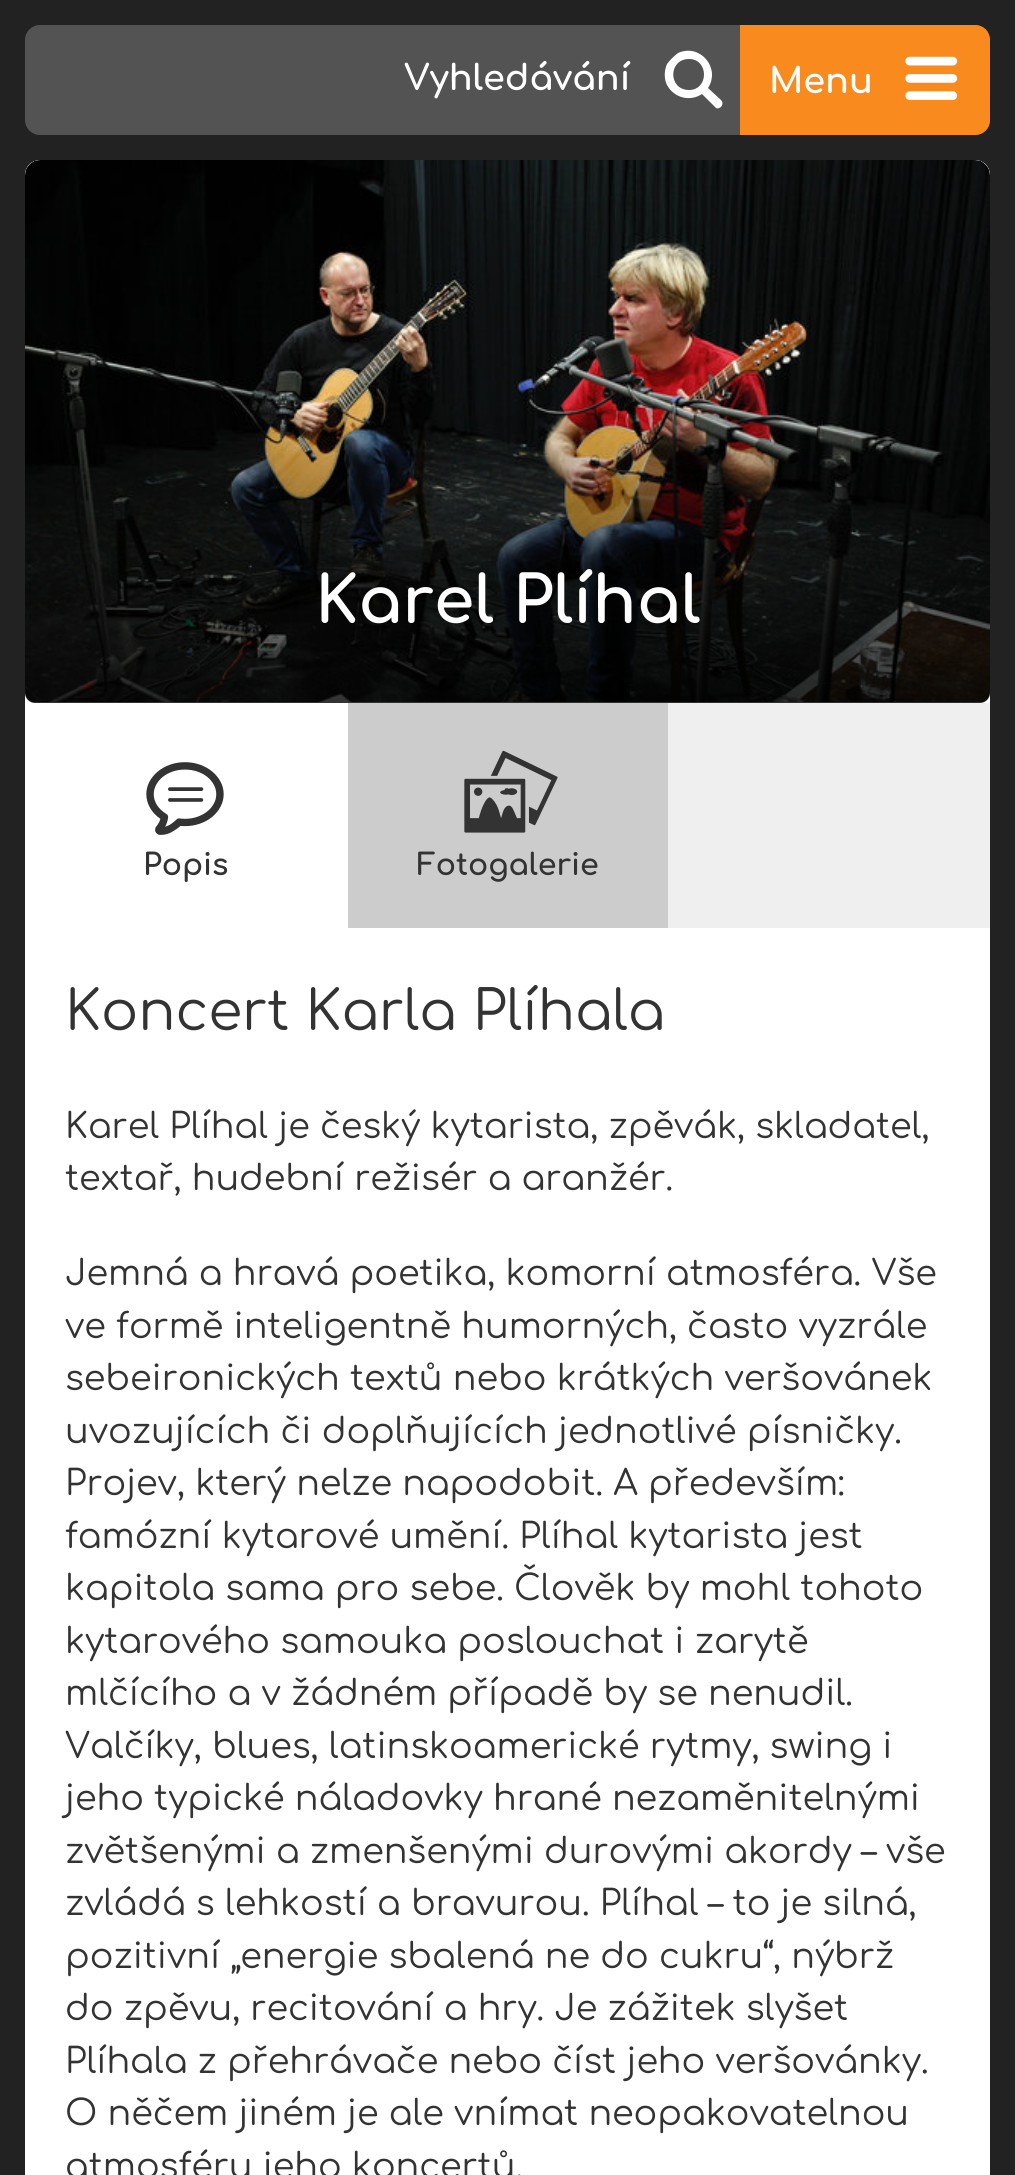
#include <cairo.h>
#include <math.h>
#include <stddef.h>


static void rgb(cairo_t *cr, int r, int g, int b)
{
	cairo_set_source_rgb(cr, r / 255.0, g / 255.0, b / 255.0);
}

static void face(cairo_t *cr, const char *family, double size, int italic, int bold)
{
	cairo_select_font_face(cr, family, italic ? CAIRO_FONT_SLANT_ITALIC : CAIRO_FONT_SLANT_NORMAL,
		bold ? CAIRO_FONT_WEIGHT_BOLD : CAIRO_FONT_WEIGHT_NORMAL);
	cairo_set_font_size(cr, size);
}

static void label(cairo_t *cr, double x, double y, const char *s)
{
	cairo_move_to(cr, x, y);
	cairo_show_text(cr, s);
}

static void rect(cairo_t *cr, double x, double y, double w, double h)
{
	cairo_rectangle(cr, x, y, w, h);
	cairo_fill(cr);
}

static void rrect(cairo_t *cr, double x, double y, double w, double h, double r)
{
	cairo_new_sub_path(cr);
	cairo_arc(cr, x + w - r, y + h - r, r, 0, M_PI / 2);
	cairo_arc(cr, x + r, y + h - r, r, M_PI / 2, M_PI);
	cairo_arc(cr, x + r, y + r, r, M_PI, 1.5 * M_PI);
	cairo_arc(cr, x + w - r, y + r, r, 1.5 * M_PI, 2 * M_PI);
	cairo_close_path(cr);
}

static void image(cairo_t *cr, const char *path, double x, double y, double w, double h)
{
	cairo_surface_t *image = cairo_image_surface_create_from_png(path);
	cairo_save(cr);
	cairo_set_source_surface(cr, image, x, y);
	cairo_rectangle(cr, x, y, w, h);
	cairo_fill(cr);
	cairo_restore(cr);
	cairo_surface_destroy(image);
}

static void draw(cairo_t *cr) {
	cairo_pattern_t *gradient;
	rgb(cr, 34, 34, 34);
	cairo_paint(cr);
	rgb(cr, 83, 83, 83);
	rrect(cr, 25, 25, 965, 110, 15);
	cairo_fill(cr);
	face(cr, "Comfortaa", 35, 0, 1);
	rgb(cr, 255, 255, 255);
	label(cr, 404, 90, "Vyhledávání");
	cairo_new_path(cr);
	cairo_move_to(cr, 721, 100);
	cairo_line_to(cr, 708, 88);
	cairo_curve_to(cr, 721, 68, 700, 43, 678, 53);
	cairo_curve_to(cr, 674, 56, 670, 60, 667, 64);
	cairo_curve_to(cr, 664, 71, 664, 79, 667, 85);
	cairo_curve_to(cr, 674, 98, 690, 102, 702, 94);
	cairo_line_to(cr, 716, 108);
	cairo_curve_to(cr, 720, 110, 725, 104, 721, 100);
	cairo_close_path(cr);
	cairo_move_to(cr, 689, 90);
	cairo_curve_to(cr, 668, 90, 668, 59, 689, 59);
	cairo_curve_to(cr, 709, 59, 709, 90, 689, 90);
	cairo_close_path(cr);
	cairo_fill(cr);
	rgb(cr, 248, 138, 30);
	cairo_new_path(cr);
	cairo_move_to(cr, 740, 25);
	cairo_line_to(cr, 975, 25);
	cairo_curve_to(cr, 983.5, 25, 990, 31.5, 990, 40);
	cairo_line_to(cr, 990, 120);
	cairo_curve_to(cr, 990, 128.5, 983.5, 135, 975, 135);
	cairo_line_to(cr, 740, 135);
	cairo_close_path(cr);
	cairo_fill(cr);
	rgb(cr, 255, 255, 255);
	label(cr, 769, 93, "Menu");
	image(cr, "image0.png", 905, 56, 53, 44);
	cairo_new_path(cr);
	cairo_move_to(cr, 40, 160);
	cairo_line_to(cr, 975, 160);
	cairo_curve_to(cr, 983.5, 160, 990, 166.5, 990, 175);
	cairo_line_to(cr, 990, 703);
	cairo_line_to(cr, 25, 703);
	cairo_line_to(cr, 25, 175);
	cairo_curve_to(cr, 25, 166.5, 31.5, 160, 40, 160);
	cairo_close_path(cr);
	cairo_fill(cr);
	image(cr, "image1.png", 25, 160, 965, 543);
	gradient = cairo_pattern_create_linear(508, 402, 508, 703);
	cairo_pattern_add_color_stop_rgba(gradient, 0, 0, 0, 0, 0);
	cairo_pattern_add_color_stop_rgba(gradient, 1, 0, 0, 0, 0.8);
	cairo_set_source(cr, gradient);
	cairo_pattern_destroy(gradient);
	cairo_new_path(cr);
	cairo_move_to(cr, 25, 403);
	cairo_line_to(cr, 990, 403);
	cairo_line_to(cr, 990, 693);
	cairo_curve_to(cr, 990, 698.5, 985.5, 703, 980, 703);
	cairo_line_to(cr, 35, 703);
	cairo_curve_to(cr, 29.5, 703, 25, 698.5, 25, 693);
	cairo_close_path(cr);
	cairo_fill(cr);
	face(cr, "Comfortaa", 65, 0, 1);
	rgb(cr, 255, 255, 255);
	label(cr, 315, 623, "Karel Plíhal");
	rect(cr, 25, 928, 965, 1247);
	rgb(cr, 239, 239, 239);
	rect(cr, 668, 703, 322, 225);
	rgb(cr, 255, 255, 255);
	rect(cr, 25, 703, 323, 225);
	image(cr, "image2.png", 146, 762, 78, 73);
	face(cr, "Comfortaa", 30, 0, 1);
	rgb(cr, 51, 51, 51);
	label(cr, 143, 875, "Popis");
	rgb(cr, 204, 204, 204);
	rect(cr, 348, 703, 320, 225);
	image(cr, "image3.png", 464, 750, 94, 83);
	rgb(cr, 51, 51, 51);
	label(cr, 417, 875, "Fotogalerie");
	face(cr, "Comfortaa", 55, 0, 0);
	label(cr, 65, 1030, "Koncert Karla Plíhala");
	face(cr, "Comfortaa", 35, 0, 0);
	label(cr, 65, 1138, "Karel Plíhal je český kytarista, zpěvák, skladatel,");
	label(cr, 65, 1190, "textař, hudební režisér a aranžér.");
	label(cr, 65, 1285, "Jemná a hravá poetika, komorní atmosféra. Vše");
	label(cr, 65, 1338, "ve formě inteligentně humorných, často vyzrále");
	label(cr, 65, 1390, "sebeironických textů nebo krátkých veršovánek");
	label(cr, 65, 1443, "uvozujících či doplňujících jednotlivé písničky.");
	label(cr, 65, 1495, "Projev, který nelze napodobit. A především:");
	label(cr, 65, 1548, "famózní kytarové umění. Plíhal kytarista jest");
	label(cr, 65, 1600, "kapitola sama pro sebe. Člověk by mohl tohoto");
	label(cr, 65, 1653, "kytarového samouka poslouchat i zarytě");
	label(cr, 65, 1705, "mlčícího a v žádném případě by se nenudil.");
	label(cr, 65, 1758, "Valčíky, blues, latinskoamerické rytmy, swing i");
	label(cr, 65, 1810, "jeho typické náladovky hrané nezaměnitelnými");
	label(cr, 65, 1863, "zvětšenými a zmenšenými durovými akordy – vše");
	label(cr, 65, 1915, "zvládá s lehkostí a bravurou. Plíhal – to je silná,");
	label(cr, 65, 1968, "pozitivní „energie sbalená ne do cukru“, nýbrž");
	label(cr, 65, 2020, "do zpěvu, recitování a hry. Je zážitek slyšet");
	label(cr, 65, 2073, "Plíhala z přehrávače nebo číst jeho veršovánky.");
	label(cr, 65, 2125, "O něčem jiném je ale vnímat neopakovatelnou");
	label(cr, 65, 2178, "atmosféru jeho koncertů.");
}

int main(void) {
	cairo_surface_t *surface = cairo_image_surface_create(CAIRO_FORMAT_RGB24, 1015, 2175);
	cairo_t *cr = cairo_create(surface);
	cairo_font_options_t *options = cairo_font_options_create();
	cairo_font_options_set_hint_metrics(options, CAIRO_HINT_METRICS_OFF);
	cairo_font_options_set_hint_style(options, CAIRO_HINT_STYLE_NONE);
	cairo_set_font_options(cr, options);
	cairo_set_miter_limit(cr, 4);
	draw(cr);
	cairo_surface_write_to_png(surface, "render.png");
	cairo_font_options_destroy(options);
	cairo_destroy(cr);
	cairo_surface_destroy(surface);
	return 0;
}
